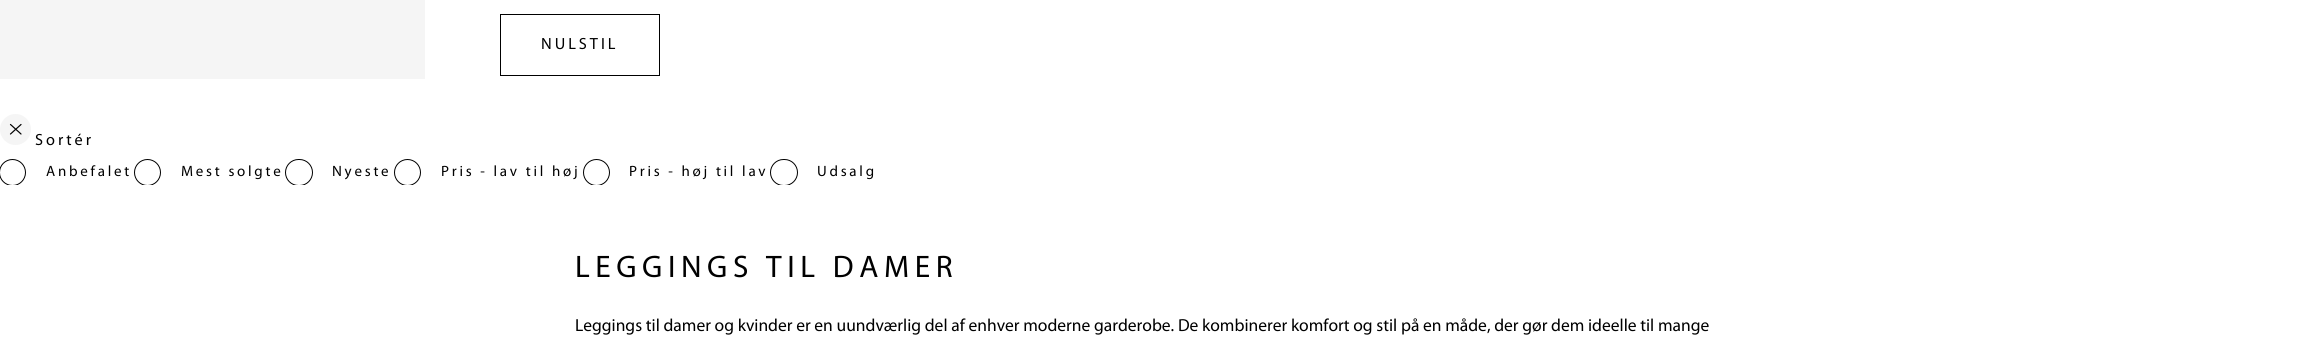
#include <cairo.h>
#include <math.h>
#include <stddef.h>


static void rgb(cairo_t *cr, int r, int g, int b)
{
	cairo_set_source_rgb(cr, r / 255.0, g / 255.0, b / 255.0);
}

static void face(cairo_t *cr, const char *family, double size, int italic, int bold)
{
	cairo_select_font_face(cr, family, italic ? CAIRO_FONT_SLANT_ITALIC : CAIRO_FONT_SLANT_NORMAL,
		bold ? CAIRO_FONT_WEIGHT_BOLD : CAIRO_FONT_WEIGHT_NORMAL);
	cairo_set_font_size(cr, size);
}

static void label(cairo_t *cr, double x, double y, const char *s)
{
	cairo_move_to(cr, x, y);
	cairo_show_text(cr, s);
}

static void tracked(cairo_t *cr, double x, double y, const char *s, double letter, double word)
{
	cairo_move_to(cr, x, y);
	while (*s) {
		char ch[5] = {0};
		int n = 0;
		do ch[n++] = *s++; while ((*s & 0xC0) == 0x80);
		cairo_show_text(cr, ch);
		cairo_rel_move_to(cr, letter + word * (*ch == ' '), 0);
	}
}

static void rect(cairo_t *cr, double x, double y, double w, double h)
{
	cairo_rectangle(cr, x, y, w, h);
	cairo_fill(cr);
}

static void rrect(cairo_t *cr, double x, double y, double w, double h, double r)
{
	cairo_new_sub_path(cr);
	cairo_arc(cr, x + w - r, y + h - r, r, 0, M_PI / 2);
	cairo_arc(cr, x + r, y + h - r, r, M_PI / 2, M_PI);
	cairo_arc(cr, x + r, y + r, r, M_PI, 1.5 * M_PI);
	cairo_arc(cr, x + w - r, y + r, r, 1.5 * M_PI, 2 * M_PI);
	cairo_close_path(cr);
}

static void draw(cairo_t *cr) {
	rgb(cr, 255, 255, 255);
	cairo_paint(cr);
	rgb(cr, 245, 245, 245);
	rect(cr, 0, 0, 425, 79);
	cairo_rectangle(cr, 500.5, 14.5, 159, 61);
	rgb(cr, 0, 0, 0);
	cairo_set_line_width(cr, 1);
	cairo_stroke(cr);
	face(cr, "Myriad", 16.25, 0, 0);
	tracked(cr, 541, 49, "NULSTIL", 3, 0);
	rgb(cr, 245, 245, 245);
	cairo_new_path(cr);
	cairo_arc(cr, 15.5, 129.5, 15.5, 0, 2 * M_PI);
	cairo_fill(cr);
	cairo_new_path(cr);
	cairo_move_to(cr, 21, 124.5);
	cairo_line_to(cr, 10.5, 134);
	cairo_move_to(cr, 10.5, 124.5);
	cairo_line_to(cr, 21, 134);
	rgb(cr, 0, 0, 0);
	cairo_set_line_width(cr, 1.2);
	cairo_set_line_cap(cr, CAIRO_LINE_CAP_ROUND);
	cairo_set_line_join(cr, CAIRO_LINE_JOIN_ROUND);
	cairo_stroke(cr);
	tracked(cr, 35, 145, "Sortér", 3, 0);
	cairo_save(cr);
	cairo_rectangle(cr, 0, 155, 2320, 30);
	cairo_clip(cr);
	cairo_arc(cr, 12.5, 172.5, 13, 0, 2 * M_PI);
	cairo_set_line_width(cr, 1);
	cairo_set_line_cap(cr, CAIRO_LINE_CAP_BUTT);
	cairo_set_line_join(cr, CAIRO_LINE_JOIN_MITER);
	cairo_stroke(cr);
	cairo_restore(cr);
	face(cr, "Myriad", 15, 0, 0);
	tracked(cr, 46, 176, "Anbefalet", 2.75, 0);
	cairo_save(cr);
	cairo_rectangle(cr, 0, 155, 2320, 30);
	cairo_clip(cr);
	cairo_arc(cr, 147.5, 172.5, 13, 0, 2 * M_PI);
	cairo_set_line_width(cr, 1);
	cairo_set_line_cap(cr, CAIRO_LINE_CAP_BUTT);
	cairo_set_line_join(cr, CAIRO_LINE_JOIN_MITER);
	cairo_stroke(cr);
	cairo_restore(cr);
	tracked(cr, 181, 176, "Mest solgte", 2.75, 0);
	cairo_save(cr);
	cairo_rectangle(cr, 0, 155, 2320, 30);
	cairo_clip(cr);
	rrect(cr, 285.5, 159.5, 27, 26, 13);
	cairo_set_line_width(cr, 1);
	cairo_set_line_cap(cr, CAIRO_LINE_CAP_BUTT);
	cairo_set_line_join(cr, CAIRO_LINE_JOIN_MITER);
	cairo_stroke(cr);
	cairo_restore(cr);
	tracked(cr, 332, 176, "Nyeste", 2.75, 0);
	cairo_save(cr);
	cairo_rectangle(cr, 0, 155, 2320, 30);
	cairo_clip(cr);
	cairo_arc(cr, 407.5, 172.5, 13, 0, 2 * M_PI);
	cairo_set_line_width(cr, 1);
	cairo_set_line_cap(cr, CAIRO_LINE_CAP_BUTT);
	cairo_set_line_join(cr, CAIRO_LINE_JOIN_MITER);
	cairo_stroke(cr);
	cairo_restore(cr);
	tracked(cr, 441, 176, "Pris - lav til høj", 2.75, 0);
	cairo_save(cr);
	cairo_rectangle(cr, 0, 155, 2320, 30);
	cairo_clip(cr);
	cairo_arc(cr, 596.5, 172.5, 13, 0, 2 * M_PI);
	cairo_set_line_width(cr, 1);
	cairo_set_line_cap(cr, CAIRO_LINE_CAP_BUTT);
	cairo_set_line_join(cr, CAIRO_LINE_JOIN_MITER);
	cairo_stroke(cr);
	cairo_restore(cr);
	tracked(cr, 629, 176, "Pris - høj til lav", 2.75, 0);
	cairo_save(cr);
	cairo_rectangle(cr, 0, 155, 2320, 30);
	cairo_clip(cr);
	rrect(cr, 770.5, 159.5, 27, 26, 13);
	cairo_set_line_width(cr, 1);
	cairo_set_line_cap(cr, CAIRO_LINE_CAP_BUTT);
	cairo_set_line_join(cr, CAIRO_LINE_JOIN_MITER);
	cairo_stroke(cr);
	cairo_restore(cr);
	tracked(cr, 817, 176, "Udsalg", 2.75, 0);
	face(cr, "Myriad", 31.25, 0, 0);
	tracked(cr, 575, 277, "LEGGINGS TIL DAMER", 5.6, 0);
	face(cr, "Myriad", 17.5, 0, 0);
	label(cr, 575, 331, "Leggings til damer og kvinder er en uundværlig del af enhver moderne garderobe. De kombinerer komfort og stil på en måde, der gør dem ideelle til mange");
}

int main(void) {
	cairo_surface_t *surface = cairo_image_surface_create(CAIRO_FORMAT_RGB24, 2319, 343);
	cairo_t *cr = cairo_create(surface);
	cairo_font_options_t *options = cairo_font_options_create();
	cairo_font_options_set_hint_metrics(options, CAIRO_HINT_METRICS_OFF);
	cairo_font_options_set_hint_style(options, CAIRO_HINT_STYLE_NONE);
	cairo_set_font_options(cr, options);
	cairo_set_miter_limit(cr, 4);
	draw(cr);
	cairo_surface_write_to_png(surface, "render.png");
	cairo_font_options_destroy(options);
	cairo_destroy(cr);
	cairo_surface_destroy(surface);
	return 0;
}
